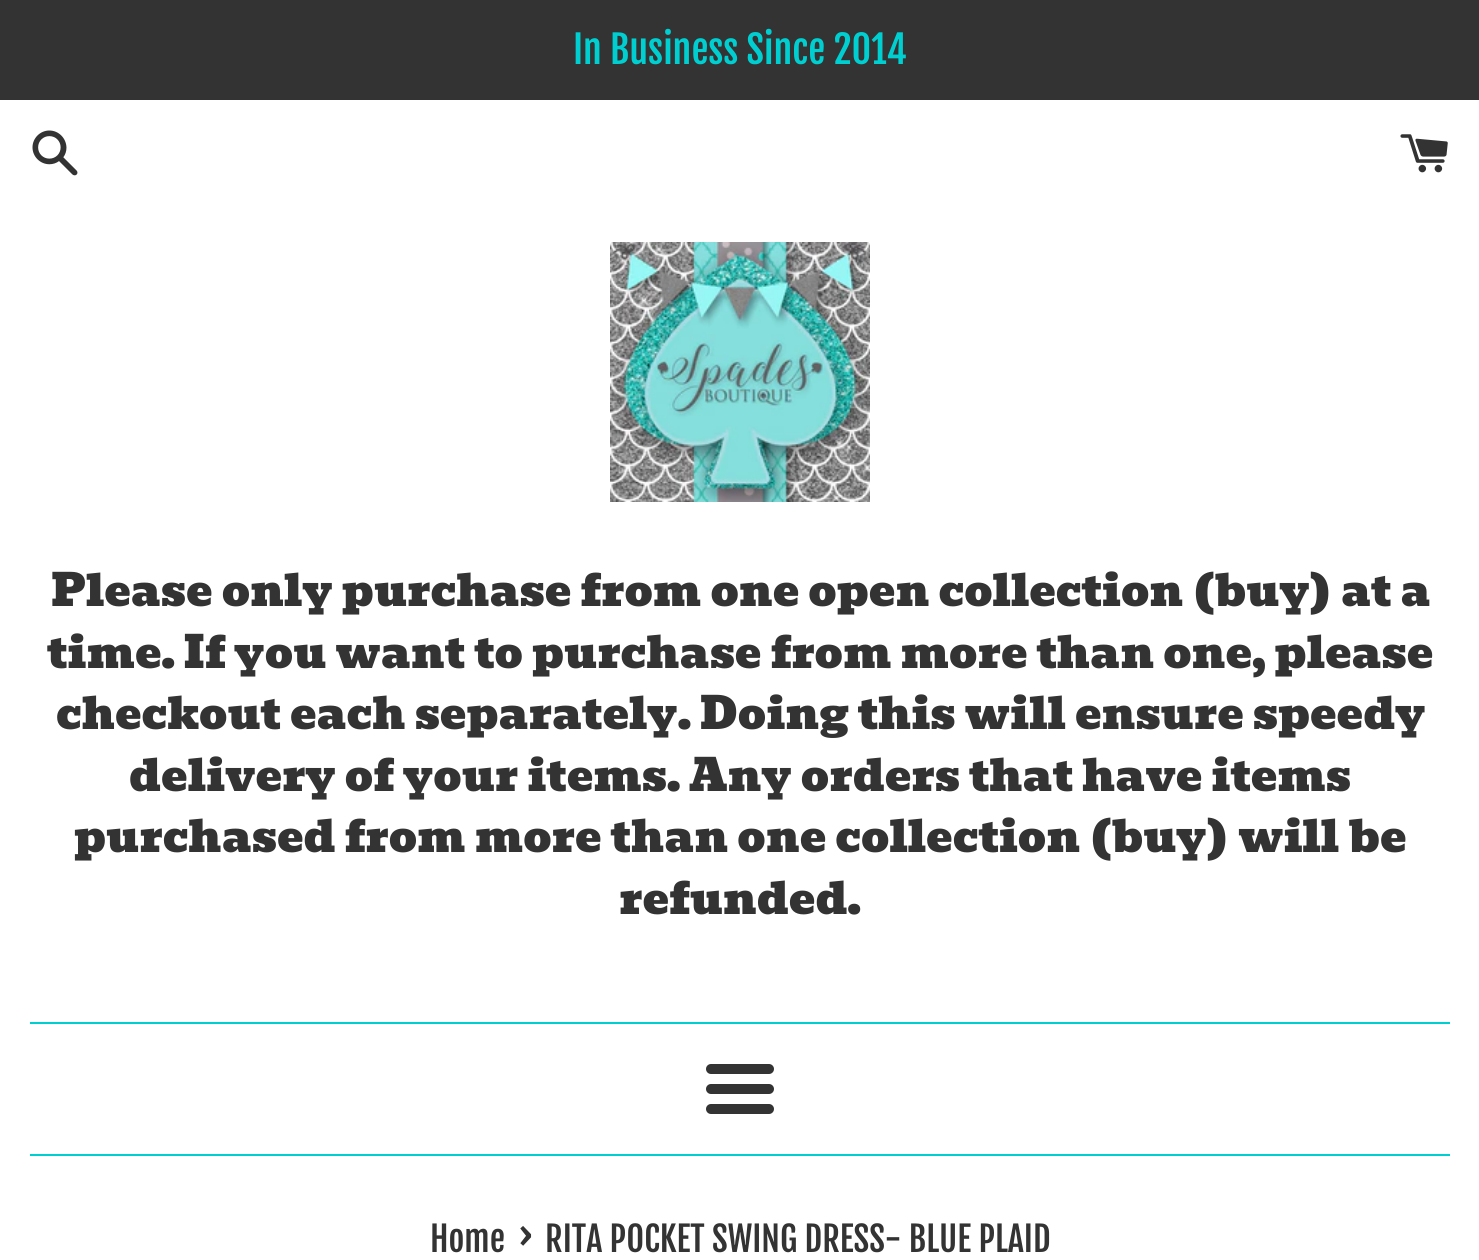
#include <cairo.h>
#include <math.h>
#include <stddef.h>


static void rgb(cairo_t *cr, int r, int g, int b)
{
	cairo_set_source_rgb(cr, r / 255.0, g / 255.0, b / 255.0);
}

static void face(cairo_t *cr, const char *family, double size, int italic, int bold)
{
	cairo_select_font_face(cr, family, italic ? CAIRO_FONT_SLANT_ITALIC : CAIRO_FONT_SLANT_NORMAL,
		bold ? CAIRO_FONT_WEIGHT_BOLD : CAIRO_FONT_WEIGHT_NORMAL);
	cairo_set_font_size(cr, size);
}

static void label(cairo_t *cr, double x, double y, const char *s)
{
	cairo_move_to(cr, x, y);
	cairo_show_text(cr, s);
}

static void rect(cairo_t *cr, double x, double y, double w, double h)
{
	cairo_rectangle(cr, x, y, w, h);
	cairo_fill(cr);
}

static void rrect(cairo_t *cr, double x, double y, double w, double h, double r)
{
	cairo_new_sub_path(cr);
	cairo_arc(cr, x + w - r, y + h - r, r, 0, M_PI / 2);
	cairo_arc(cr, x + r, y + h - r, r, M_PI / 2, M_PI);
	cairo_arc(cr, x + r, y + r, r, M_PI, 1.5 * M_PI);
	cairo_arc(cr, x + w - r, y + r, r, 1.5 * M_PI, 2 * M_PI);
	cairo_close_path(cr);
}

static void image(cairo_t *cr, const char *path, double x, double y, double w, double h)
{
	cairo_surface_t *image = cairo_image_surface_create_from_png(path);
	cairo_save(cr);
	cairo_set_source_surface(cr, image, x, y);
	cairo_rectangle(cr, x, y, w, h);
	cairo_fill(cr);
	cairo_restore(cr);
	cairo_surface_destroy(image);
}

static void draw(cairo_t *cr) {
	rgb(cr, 255, 255, 255);
	cairo_paint(cr);
	rgb(cr, 51, 51, 51);
	rect(cr, 0, 0, 1479, 100);
	face(cr, "Fjalla One", 38, 0, 0);
	rgb(cr, 0, 207, 209);
	label(cr, 573, 64, "In Business Since 2014");
	image(cr, "image0.png", 32, 130, 46, 46);
	image(cr, "image1.png", 1400, 134, 48, 39);
	image(cr, "image2.png", 610, 242, 260, 260);
	face(cr, "Bevan", 44, 0, 0);
	rgb(cr, 51, 51, 51);
	label(cr, 51, 606, "Please only purchase from one open collection (buy) at a");
	label(cr, 47, 668, "time. If you want to purchase from more than one, please");
	label(cr, 56, 729, "checkout each separately. Doing this will ensure speedy");
	label(cr, 129, 791, "delivery of your items. Any orders that have items");
	label(cr, 74, 852, "purchased from more than one collection (buy) will be");
	label(cr, 619, 914, "refunded.");
	rgb(cr, 0, 207, 209);
	rect(cr, 30, 1022, 1420, 2);
	rgb(cr, 51, 51, 51);
	rrect(cr, 706, 1064, 68, 10, 5);
	cairo_fill(cr);
	rrect(cr, 706, 1084, 68, 10, 5);
	cairo_fill(cr);
	rrect(cr, 706, 1104, 68, 10, 5);
	cairo_fill(cr);
	rgb(cr, 0, 207, 209);
	rect(cr, 30, 1154, 1420, 2);
	face(cr, "Fjalla One", 34.25, 0, 0);
	rgb(cr, 51, 51, 51);
	label(cr, 430, 1252, "Home");
	face(cr, "Fjalla One", 42, 0, 0);
	label(cr, 517, 1252, "›");
	face(cr, "Fjalla One", 34.25, 0, 0);
	label(cr, 545, 1252, "RITA POCKET SWING DRESS- BLUE PLAID");
}

int main(void) {
	cairo_surface_t *surface = cairo_image_surface_create(CAIRO_FORMAT_RGB24, 1479, 1260);
	cairo_t *cr = cairo_create(surface);
	cairo_font_options_t *options = cairo_font_options_create();
	cairo_font_options_set_hint_metrics(options, CAIRO_HINT_METRICS_OFF);
	cairo_font_options_set_hint_style(options, CAIRO_HINT_STYLE_NONE);
	cairo_set_font_options(cr, options);
	cairo_set_miter_limit(cr, 4);
	draw(cr);
	cairo_surface_write_to_png(surface, "render.png");
	cairo_font_options_destroy(options);
	cairo_destroy(cr);
	cairo_surface_destroy(surface);
	return 0;
}
